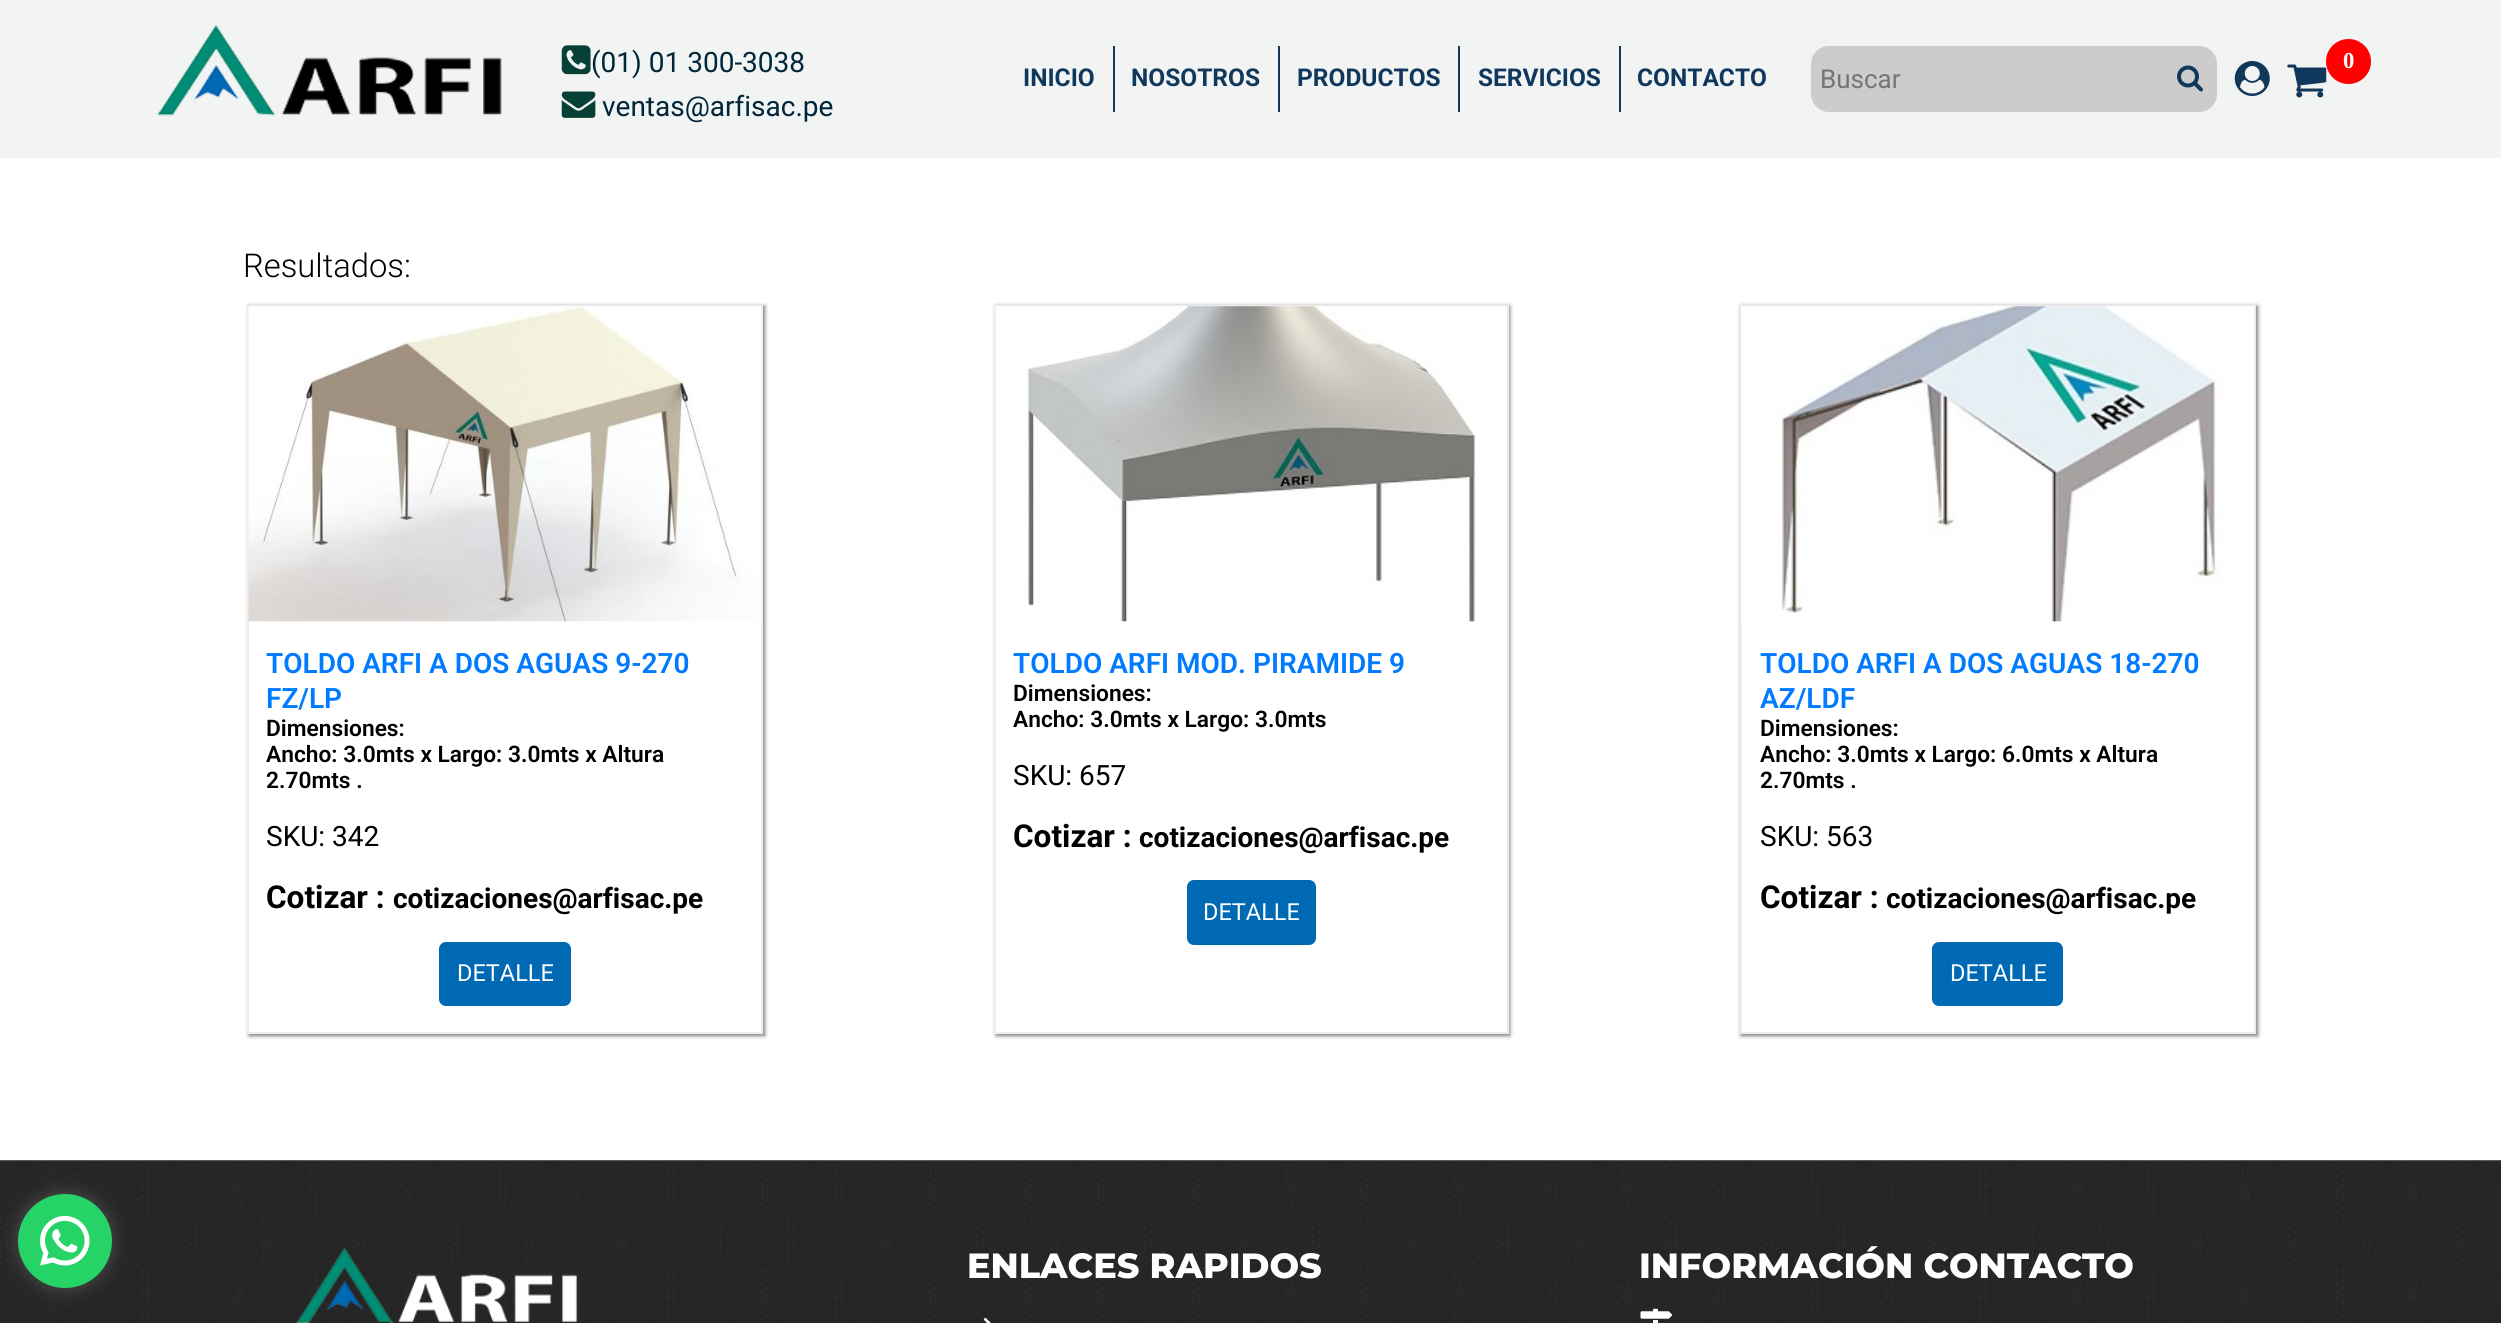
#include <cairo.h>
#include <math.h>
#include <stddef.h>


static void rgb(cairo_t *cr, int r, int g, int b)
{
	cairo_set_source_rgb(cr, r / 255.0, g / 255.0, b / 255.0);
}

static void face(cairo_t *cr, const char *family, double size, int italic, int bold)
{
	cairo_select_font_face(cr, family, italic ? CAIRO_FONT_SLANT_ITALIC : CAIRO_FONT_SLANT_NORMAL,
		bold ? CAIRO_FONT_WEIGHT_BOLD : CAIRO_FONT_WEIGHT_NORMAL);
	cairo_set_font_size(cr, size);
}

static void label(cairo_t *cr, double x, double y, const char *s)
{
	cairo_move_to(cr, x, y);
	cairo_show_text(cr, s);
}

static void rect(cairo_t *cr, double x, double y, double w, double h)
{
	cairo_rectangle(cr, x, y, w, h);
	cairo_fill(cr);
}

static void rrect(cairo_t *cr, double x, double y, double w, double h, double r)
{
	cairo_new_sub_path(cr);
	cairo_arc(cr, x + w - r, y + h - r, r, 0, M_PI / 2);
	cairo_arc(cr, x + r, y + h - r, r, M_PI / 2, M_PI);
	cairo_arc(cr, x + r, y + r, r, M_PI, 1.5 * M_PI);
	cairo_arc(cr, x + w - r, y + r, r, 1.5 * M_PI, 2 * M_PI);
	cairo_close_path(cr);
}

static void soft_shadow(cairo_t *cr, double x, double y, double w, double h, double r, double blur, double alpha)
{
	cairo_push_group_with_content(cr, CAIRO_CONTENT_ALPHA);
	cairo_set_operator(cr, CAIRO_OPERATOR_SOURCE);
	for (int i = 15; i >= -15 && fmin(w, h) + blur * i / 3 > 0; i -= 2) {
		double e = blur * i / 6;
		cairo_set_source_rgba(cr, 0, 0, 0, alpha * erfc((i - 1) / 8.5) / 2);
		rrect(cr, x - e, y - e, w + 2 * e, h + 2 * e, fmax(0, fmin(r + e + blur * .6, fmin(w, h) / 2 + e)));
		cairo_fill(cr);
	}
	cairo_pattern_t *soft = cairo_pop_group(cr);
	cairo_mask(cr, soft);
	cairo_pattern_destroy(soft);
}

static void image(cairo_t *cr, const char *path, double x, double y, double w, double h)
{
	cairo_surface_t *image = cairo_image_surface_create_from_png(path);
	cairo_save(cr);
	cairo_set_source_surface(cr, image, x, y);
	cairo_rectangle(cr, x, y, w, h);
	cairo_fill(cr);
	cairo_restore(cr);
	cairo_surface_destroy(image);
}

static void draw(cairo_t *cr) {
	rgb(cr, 255, 255, 255);
	cairo_paint(cr);
	rgb(cr, 242, 243, 243);
	rect(cr, 0, 0, 2501, 158);
	image(cr, "image0.png", 157, 25, 345, 91);
	image(cr, "image1.png", 561, 45, 30, 30);
	face(cr, "Roboto", 28, 0, 0);
	rgb(cr, 0, 38, 59);
	label(cr, 591, 72, "(01) 01 300-3038");
	image(cr, "image2.png", 561, 91, 35, 27);
	label(cr, 602, 116, "ventas@arfisac.pe");
	rgb(cr, 16, 55, 92);
	rect(cr, 1113, 46, 2, 66);
	face(cr, "Roboto", 24.5, 0, 1);
	label(cr, 1023, 86, "INICIO");
	rect(cr, 1278, 46, 2, 66);
	label(cr, 1131, 86, "NOSOTROS");
	rect(cr, 1458, 46, 2, 66);
	label(cr, 1297, 86, "PRODUCTOS");
	rect(cr, 1619, 46, 2, 66);
	label(cr, 1478, 86, "SERVICIOS");
	label(cr, 1637, 86, "CONTACTO");
	rgb(cr, 204, 204, 204);
	rrect(cr, 1811, 46, 406, 66, 18);
	cairo_fill(cr);
	face(cr, "Roboto", 26, 0, 0);
	rgb(cr, 117, 117, 117);
	label(cr, 1820, 88, "Buscar");
	image(cr, "image3.png", 2177, 65, 26, 27);
	image(cr, "image4.png", 2234, 61, 36, 35);
	image(cr, "image5.png", 2287, 64, 40, 34);
	rgb(cr, 255, 0, 0);
	cairo_arc(cr, 2348.5, 61.5, 22.5, 0, 2 * M_PI);
	cairo_fill(cr);
	face(cr, "Liberation Serif", 22.75, 0, 1);
	rgb(cr, 255, 255, 255);
	label(cr, 2343, 68, "0");
	face(cr, "Roboto Light", 32.75, 0, 0);
	rgb(cr, 0, 0, 0);
	label(cr, 243, 277, "Resultados:");
	cairo_save(cr);
	cairo_set_fill_rule(cr, CAIRO_FILL_RULE_EVEN_ODD);
	cairo_new_path(cr);
	cairo_move_to(cr, 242, 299);
	cairo_line_to(cr, 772, 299);
	cairo_line_to(cr, 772, 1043);
	cairo_line_to(cr, 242, 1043);
	cairo_close_path(cr);
	cairo_move_to(cr, 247, 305);
	cairo_line_to(cr, 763, 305);
	cairo_line_to(cr, 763, 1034);
	cairo_line_to(cr, 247, 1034);
	cairo_close_path(cr);
	cairo_clip(cr);
	rgb(cr, 128, 128, 128);
	soft_shadow(cr, 249, 306, 516, 730, 0, 2, 1);
	cairo_restore(cr);
	cairo_rectangle(cr, 248, 306, 514, 727);
	rgb(cr, 237, 237, 237);
	cairo_stroke(cr);
	image(cr, "image6.png", 248, 306, 514, 316);
	face(cr, "Roboto SemiBold", 28, 0, 0);
	rgb(cr, 0, 123, 255);
	label(cr, 266, 673, "TOLDO ARFI A DOS AGUAS 9-270");
	label(cr, 266, 708, "FZ/LP");
	face(cr, "Roboto SemiBold", 22.75, 0, 0);
	rgb(cr, 0, 0, 0);
	label(cr, 266, 736, "Dimensiones:");
	label(cr, 266, 762, "Ancho: 3.0mts x Largo: 3.0mts x Altura");
	label(cr, 266, 788, "2.70mts .");
	face(cr, "Roboto", 28, 0, 0);
	label(cr, 266, 846, "SKU: 342");
	face(cr, "Roboto", 31.5, 0, 1);
	label(cr, 266, 908, "Cotizar :");
	face(cr, "Roboto", 28, 0, 1);
	label(cr, 393, 908, "cotizaciones@arfisac.pe");
	rgb(cr, 0, 105, 179);
	rrect(cr, 439, 942, 132, 64, 7);
	cairo_fill(cr);
	face(cr, "Roboto", 23.5, 0, 0);
	rgb(cr, 255, 255, 255);
	label(cr, 457, 981, "DETALLE");
	cairo_save(cr);
	cairo_set_fill_rule(cr, CAIRO_FILL_RULE_EVEN_ODD);
	cairo_new_path(cr);
	cairo_move_to(cr, 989, 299);
	cairo_line_to(cr, 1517, 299);
	cairo_line_to(cr, 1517, 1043);
	cairo_line_to(cr, 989, 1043);
	cairo_close_path(cr);
	cairo_move_to(cr, 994, 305);
	cairo_line_to(cr, 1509, 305);
	cairo_line_to(cr, 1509, 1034);
	cairo_line_to(cr, 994, 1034);
	cairo_close_path(cr);
	cairo_clip(cr);
	rgb(cr, 128, 128, 128);
	soft_shadow(cr, 996, 306, 514, 730, 0, 2, 1);
	cairo_restore(cr);
	cairo_rectangle(cr, 995, 306, 513, 727);
	rgb(cr, 237, 237, 237);
	cairo_stroke(cr);
	image(cr, "image7.png", 995, 306, 512, 316);
	face(cr, "Roboto SemiBold", 28, 0, 0);
	rgb(cr, 0, 123, 255);
	label(cr, 1013, 673, "TOLDO ARFI MOD. PIRAMIDE 9");
	face(cr, "Roboto SemiBold", 22.75, 0, 0);
	rgb(cr, 0, 0, 0);
	label(cr, 1013, 701, "Dimensiones:");
	label(cr, 1013, 727, "Ancho: 3.0mts x Largo: 3.0mts");
	face(cr, "Roboto", 28, 0, 0);
	label(cr, 1013, 785, "SKU: 657");
	face(cr, "Roboto", 31.5, 0, 1);
	label(cr, 1013, 847, "Cotizar :");
	face(cr, "Roboto", 28, 0, 1);
	label(cr, 1139, 847, "cotizaciones@arfisac.pe");
	rgb(cr, 0, 105, 179);
	rrect(cr, 1187, 880, 129, 65, 7);
	cairo_fill(cr);
	face(cr, "Roboto", 23.5, 0, 0);
	rgb(cr, 255, 255, 255);
	label(cr, 1203, 920, "DETALLE");
	cairo_save(cr);
	cairo_set_fill_rule(cr, CAIRO_FILL_RULE_EVEN_ODD);
	cairo_new_path(cr);
	cairo_move_to(cr, 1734, 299);
	cairo_line_to(cr, 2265, 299);
	cairo_line_to(cr, 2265, 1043);
	cairo_line_to(cr, 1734, 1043);
	cairo_close_path(cr);
	cairo_move_to(cr, 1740, 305);
	cairo_line_to(cr, 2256, 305);
	cairo_line_to(cr, 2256, 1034);
	cairo_line_to(cr, 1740, 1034);
	cairo_close_path(cr);
	cairo_clip(cr);
	rgb(cr, 128, 128, 128);
	soft_shadow(cr, 1741, 306, 517, 730, 0, 2, 1);
	cairo_restore(cr);
	cairo_rectangle(cr, 1741, 306, 514, 727);
	rgb(cr, 237, 237, 237);
	cairo_stroke(cr);
	image(cr, "image8.png", 1741, 306, 513, 316);
	face(cr, "Roboto SemiBold", 28, 0, 0);
	rgb(cr, 0, 123, 255);
	label(cr, 1760, 673, "TOLDO ARFI A DOS AGUAS 18-270");
	label(cr, 1760, 708, "AZ/LDF");
	face(cr, "Roboto SemiBold", 22.75, 0, 0);
	rgb(cr, 0, 0, 0);
	label(cr, 1760, 736, "Dimensiones:");
	label(cr, 1760, 762, "Ancho: 3.0mts x Largo: 6.0mts x Altura");
	label(cr, 1760, 788, "2.70mts .");
	face(cr, "Roboto", 28, 0, 0);
	label(cr, 1760, 846, "SKU: 563");
	face(cr, "Roboto", 31.5, 0, 1);
	label(cr, 1760, 908, "Cotizar :");
	face(cr, "Roboto", 28, 0, 1);
	label(cr, 1886, 908, "cotizaciones@arfisac.pe");
	rgb(cr, 0, 105, 179);
	rrect(cr, 1932, 942, 131, 64, 7);
	cairo_fill(cr);
	face(cr, "Roboto", 23.5, 0, 0);
	rgb(cr, 255, 255, 255);
	label(cr, 1950, 981, "DETALLE");
	image(cr, "image10.png", 0, 1160, 2501, 163);
	rgb(cr, 128, 128, 128);
	soft_shadow(cr, 18, 1194, 94, 94, 47, 9, 0.46);
	rgb(cr, 37, 211, 102);
	cairo_arc(cr, 65, 1241, 47, 0, 2 * M_PI);
	cairo_fill(cr);
	image(cr, "image9.png", 40, 1215, 50, 51);
	image(cr, "image11.png", 296, 1247, 282, 76);
	face(cr, "Montserrat ExtraBold", 35, 0, 0);
	rgb(cr, 255, 255, 255);
	label(cr, 967, 1278, "ENLACES RAPIDOS");
	image(cr, "image12.png", 983, 1317, 8, 6);
	label(cr, 1639, 1278, "INFORMACIÓN CONTACTO");
	image(cr, "image13.png", 1640, 1308, 33, 15);
}

int main(void) {
	cairo_surface_t *surface = cairo_image_surface_create(CAIRO_FORMAT_RGB24, 2501, 1323);
	cairo_t *cr = cairo_create(surface);
	cairo_font_options_t *options = cairo_font_options_create();
	cairo_font_options_set_hint_metrics(options, CAIRO_HINT_METRICS_OFF);
	cairo_font_options_set_hint_style(options, CAIRO_HINT_STYLE_NONE);
	cairo_set_font_options(cr, options);
	cairo_set_miter_limit(cr, 4);
	draw(cr);
	cairo_surface_write_to_png(surface, "render.png");
	cairo_font_options_destroy(options);
	cairo_destroy(cr);
	cairo_surface_destroy(surface);
	return 0;
}
